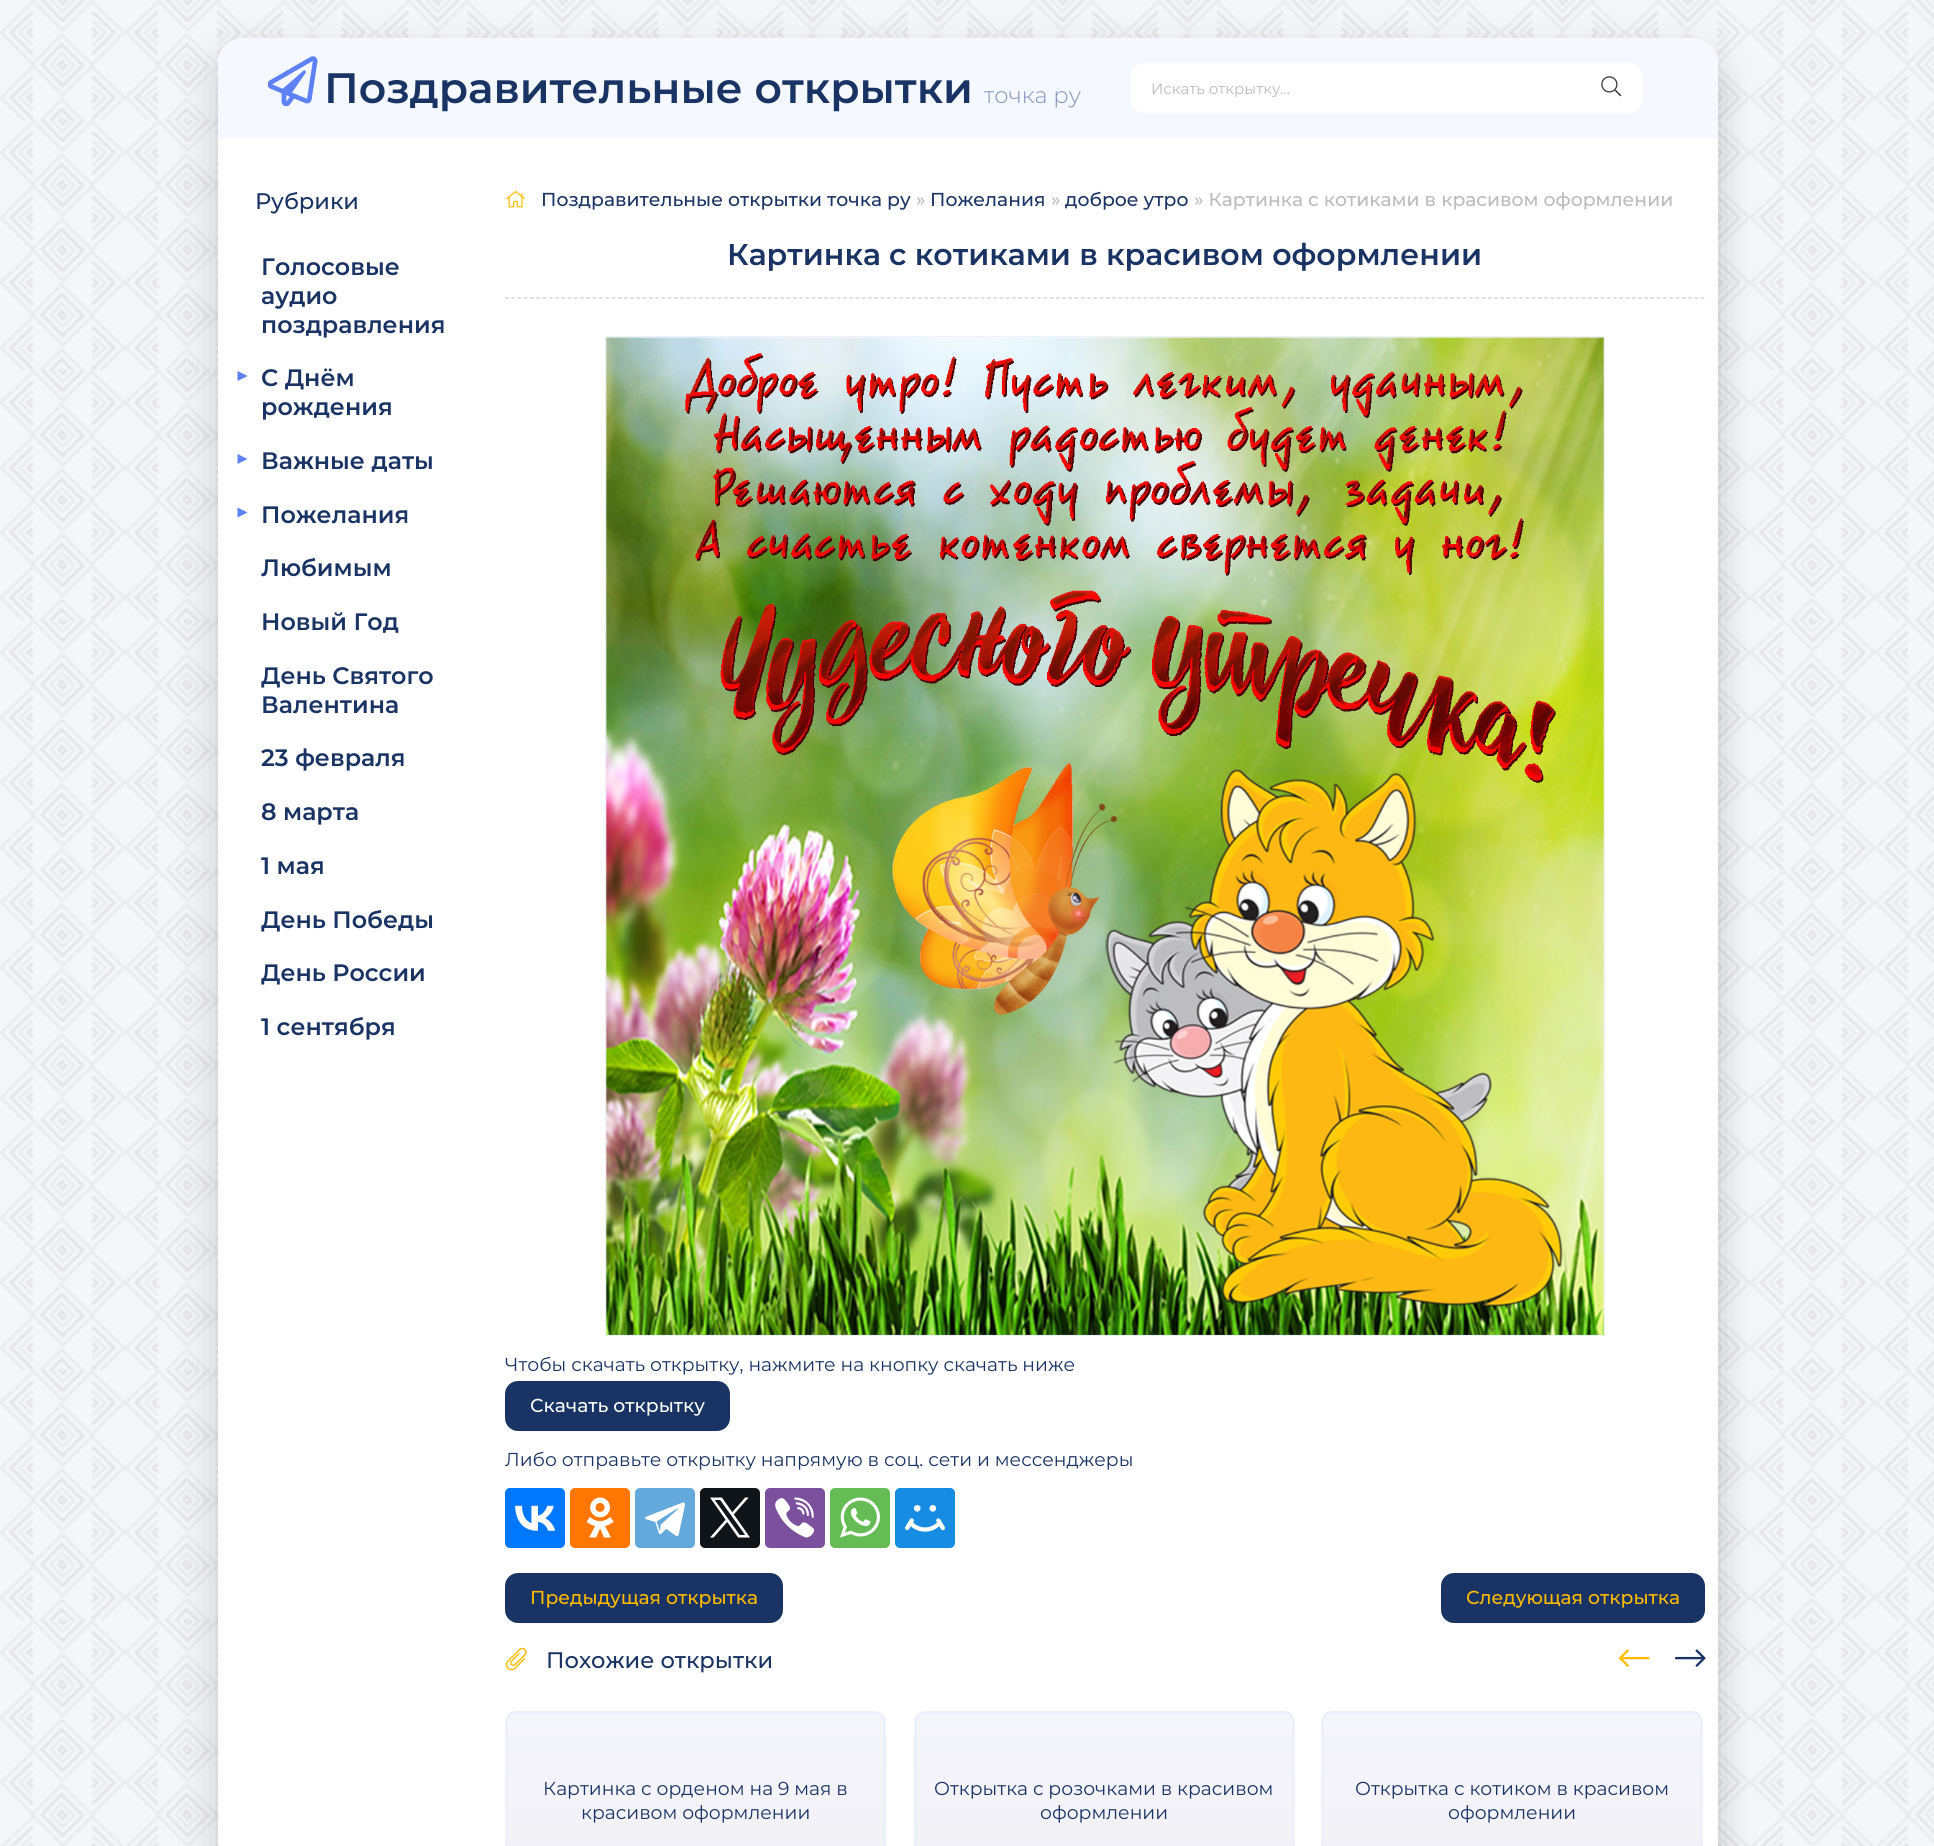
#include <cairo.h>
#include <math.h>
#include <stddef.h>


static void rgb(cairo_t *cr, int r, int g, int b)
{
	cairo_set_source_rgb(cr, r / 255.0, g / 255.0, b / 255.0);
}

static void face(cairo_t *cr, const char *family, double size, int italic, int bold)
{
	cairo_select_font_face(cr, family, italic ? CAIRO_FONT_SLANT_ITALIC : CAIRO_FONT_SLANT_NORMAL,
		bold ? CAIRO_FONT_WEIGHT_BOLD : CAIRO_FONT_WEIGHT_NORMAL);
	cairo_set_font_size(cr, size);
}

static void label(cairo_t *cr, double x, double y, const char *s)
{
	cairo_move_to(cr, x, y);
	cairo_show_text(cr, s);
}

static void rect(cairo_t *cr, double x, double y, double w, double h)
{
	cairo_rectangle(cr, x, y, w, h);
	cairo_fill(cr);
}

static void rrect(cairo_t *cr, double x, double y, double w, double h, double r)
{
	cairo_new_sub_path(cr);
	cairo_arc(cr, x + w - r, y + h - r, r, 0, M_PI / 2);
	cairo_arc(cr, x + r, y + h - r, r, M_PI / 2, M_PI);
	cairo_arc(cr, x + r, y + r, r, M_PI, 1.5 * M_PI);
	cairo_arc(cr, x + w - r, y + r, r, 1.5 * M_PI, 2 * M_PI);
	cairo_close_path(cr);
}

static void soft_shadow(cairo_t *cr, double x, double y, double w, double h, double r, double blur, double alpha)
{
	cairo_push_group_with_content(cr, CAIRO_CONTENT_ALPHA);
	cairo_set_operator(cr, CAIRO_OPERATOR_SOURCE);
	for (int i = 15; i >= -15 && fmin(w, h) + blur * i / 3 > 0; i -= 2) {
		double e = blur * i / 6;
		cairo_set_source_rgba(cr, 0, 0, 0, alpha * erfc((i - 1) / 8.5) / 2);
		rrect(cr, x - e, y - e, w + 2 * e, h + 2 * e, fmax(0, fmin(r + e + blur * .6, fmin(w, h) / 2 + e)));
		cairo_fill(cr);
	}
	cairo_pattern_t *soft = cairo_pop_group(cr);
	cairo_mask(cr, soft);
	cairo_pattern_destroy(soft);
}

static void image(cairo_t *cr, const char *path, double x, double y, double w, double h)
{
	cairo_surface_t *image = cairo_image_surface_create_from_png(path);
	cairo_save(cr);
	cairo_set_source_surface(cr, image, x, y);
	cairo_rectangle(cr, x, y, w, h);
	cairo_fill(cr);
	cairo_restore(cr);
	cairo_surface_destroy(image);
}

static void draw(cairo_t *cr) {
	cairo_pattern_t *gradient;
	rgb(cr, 255, 255, 255);
	cairo_paint(cr);
	image(cr, "image0.png", 0, 0, 1934, 1846);
	rgb(cr, 0, 0, 0);
	soft_shadow(cr, 218, 56, 1500, 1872, 25, 19, 0.2);
	rgb(cr, 255, 255, 255);
	rrect(cr, 218, 38, 1500, 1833, 25);
	cairo_fill(cr);
	rgb(cr, 245, 248, 255);
	cairo_new_path(cr);
	cairo_move_to(cr, 243, 38);
	cairo_line_to(cr, 1693, 38);
	cairo_curve_to(cr, 1707, 38, 1718, 49, 1718, 63);
	cairo_line_to(cr, 1718, 138);
	cairo_line_to(cr, 218, 138);
	cairo_line_to(cr, 218, 63);
	cairo_curve_to(cr, 218, 49, 229, 38, 243, 38);
	cairo_close_path(cr);
	cairo_fill(cr);
	image(cr, "image1.png", 268, 56, 50, 50);
	face(cr, "Montserrat SemiBold", 42.5, 0, 0);
	rgb(cr, 25, 51, 100);
	label(cr, 324, 103, "Поздравительные открытки");
	face(cr, "Montserrat Light", 22.5, 0, 0);
	rgb(cr, 132, 145, 187);
	label(cr, 984, 103, "точка ру");
	rgb(cr, 255, 255, 255);
	rrect(cr, 1131, 63, 512, 50, 13);
	cairo_fill(cr);
	face(cr, "Montserrat", 15, 0, 0);
	rgb(cr, 187, 187, 187);
	label(cr, 1151, 94, "Искать открытку...");
	image(cr, "image2.png", 1601, 76, 21, 21);
	face(cr, "Montserrat Medium", 22.5, 0, 0);
	rgb(cr, 25, 51, 100);
	label(cr, 255, 209, "Рубрики");
	face(cr, "Montserrat SemiBold", 23.75, 0, 0);
	label(cr, 261, 275, "Голосовые");
	label(cr, 261, 304, "аудио");
	label(cr, 261, 333, "поздравления");
	rgb(cr, 94, 129, 245);
	cairo_new_path(cr);
	cairo_move_to(cr, 237.5, 381);
	cairo_line_to(cr, 237.5, 371);
	cairo_line_to(cr, 247.5, 376);
	cairo_close_path(cr);
	cairo_fill(cr);
	rgb(cr, 25, 51, 100);
	label(cr, 261, 386, "С Днём");
	label(cr, 261, 415, "рождения");
	rgb(cr, 94, 129, 245);
	cairo_new_path(cr);
	cairo_move_to(cr, 237.5, 464);
	cairo_line_to(cr, 237.5, 454);
	cairo_line_to(cr, 247.5, 459);
	cairo_close_path(cr);
	cairo_fill(cr);
	rgb(cr, 25, 51, 100);
	label(cr, 261, 469, "Важные даты");
	rgb(cr, 94, 129, 245);
	cairo_new_path(cr);
	cairo_move_to(cr, 237.5, 517.5);
	cairo_line_to(cr, 237.5, 507.5);
	cairo_line_to(cr, 247.5, 512.5);
	cairo_close_path(cr);
	cairo_fill(cr);
	rgb(cr, 25, 51, 100);
	label(cr, 261, 523, "Пожелания");
	label(cr, 261, 576, "Любимым");
	label(cr, 261, 630, "Новый Год");
	label(cr, 261, 684, "День Святого");
	label(cr, 261, 713, "Валентина");
	label(cr, 261, 766, "23 февраля");
	label(cr, 261, 820, "8 марта");
	label(cr, 261, 874, "1 мая");
	label(cr, 261, 928, "День Победы");
	label(cr, 261, 981, "День России");
	label(cr, 261, 1035, "1 сентября");
	image(cr, "image3.png", 506, 191, 19, 17);
	face(cr, "Montserrat Medium", 18.75, 0, 0);
	label(cr, 541, 206, "Поздравительные открытки точка ру");
	rgb(cr, 187, 187, 187);
	label(cr, 916, 206, "»");
	rgb(cr, 25, 51, 100);
	label(cr, 930, 206, "Пожелания");
	rgb(cr, 187, 187, 187);
	label(cr, 1051, 206, "»");
	rgb(cr, 25, 51, 100);
	label(cr, 1065, 206, "доброе утро");
	rgb(cr, 187, 187, 187);
	label(cr, 1194, 206, "» Картинка с котиками в красивом оформлении");
	face(cr, "Montserrat SemiBold", 30, 0, 0);
	rgb(cr, 25, 51, 100);
	label(cr, 727, 265, "Картинка с котиками в красивом оформлении");
	cairo_new_path(cr);
	cairo_move_to(cr, 505, 298);
	cairo_line_to(cr, 1705, 298);
	rgb(cr, 204, 204, 204);
	cairo_set_line_width(cr, 1.2);
	cairo_set_dash(cr, (double[]){3.75, 2.51}, 2, 0);
	cairo_stroke(cr);
	cairo_rectangle(cr, 605.5, 336.5, 999, 999);
	rgb(cr, 236, 240, 249);
	cairo_set_line_width(cr, 1);
	cairo_set_dash(cr, NULL, 0, 0);
	cairo_stroke(cr);
	image(cr, "image4.png", 606, 337, 998, 998);
	face(cr, "Montserrat", 18.75, 0, 0);
	rgb(cr, 25, 51, 100);
	label(cr, 505, 1371, "Чтобы скачать открытку, нажмите на кнопку скачать ниже");
	rrect(cr, 505, 1381, 225, 50, 13);
	cairo_fill(cr);
	face(cr, "Montserrat Medium", 18.75, 0, 0);
	rgb(cr, 255, 255, 255);
	label(cr, 530, 1412, "Скачать открытку");
	face(cr, "Montserrat", 18.75, 0, 0);
	rgb(cr, 25, 51, 100);
	label(cr, 505, 1466, "Либо отправьте открытку напрямую в соц. сети и мессенджеры");
	rgb(cr, 0, 119, 255);
	rrect(cr, 505, 1488, 60, 60, 5);
	cairo_fill(cr);
	image(cr, "image5.png", 515, 1505, 41, 26);
	rgb(cr, 255, 119, 0);
	rrect(cr, 570, 1488, 60, 60, 5);
	cairo_fill(cr);
	image(cr, "image6.png", 586, 1497, 28, 41);
	rgb(cr, 100, 169, 220);
	rrect(cr, 635, 1488, 60, 60, 5);
	cairo_fill(cr);
	image(cr, "image7.png", 645, 1502, 40, 34);
	rgb(cr, 15, 20, 25);
	rrect(cr, 700, 1488, 60, 60, 5);
	cairo_fill(cr);
	image(cr, "image8.png", 710, 1497, 40, 41);
	rgb(cr, 123, 81, 157);
	rrect(cr, 765, 1488, 60, 60, 5);
	cairo_fill(cr);
	image(cr, "image9.png", 775, 1497, 40, 41);
	rgb(cr, 101, 188, 84);
	rrect(cr, 830, 1488, 60, 60, 5);
	cairo_fill(cr);
	image(cr, "image10.png", 840, 1497, 40, 41);
	rgb(cr, 22, 141, 226);
	rrect(cr, 895, 1488, 60, 60, 5);
	cairo_fill(cr);
	image(cr, "image11.png", 905, 1505, 40, 27);
	rgb(cr, 25, 51, 100);
	rrect(cr, 505, 1573, 278, 50, 13);
	cairo_fill(cr);
	face(cr, "Montserrat Medium", 18.75, 0, 0);
	rgb(cr, 255, 187, 0);
	label(cr, 530, 1604, "Предыдущая открытка");
	rgb(cr, 25, 51, 100);
	rrect(cr, 1441, 1573, 264, 50, 13);
	cairo_fill(cr);
	rgb(cr, 255, 187, 0);
	label(cr, 1466, 1604, "Следующая открытка");
	image(cr, "image12.png", 505, 1647, 22, 24);
	face(cr, "Montserrat Medium", 22.5, 0, 0);
	rgb(cr, 25, 51, 100);
	label(cr, 546, 1668, "Похожие открытки");
	image(cr, "image13.png", 1618, 1649, 32, 18);
	image(cr, "image14.png", 1675, 1649, 31, 18);
	cairo_save(cr);
	rrect(cr, 505, 1711, 381, 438, 11);
	cairo_clip(cr);
	gradient = cairo_pattern_create_linear(696, 1714, 696, 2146);
	cairo_pattern_add_color_stop_rgba(gradient, 0, 0.961, 0.961, 0.988, 1);
	cairo_pattern_add_color_stop_rgba(gradient, 1, 0.914, 0.914, 0.918, 1);
	cairo_set_source(cr, gradient);
	cairo_pattern_destroy(gradient);
	rect(cr, 505, 1714, 381, 132);
	cairo_restore(cr);
	rrect(cr, 506.5, 1712.5, 378, 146, 9.5);
	rgb(cr, 236, 240, 249);
	cairo_set_line_width(cr, 3);
	cairo_stroke(cr);
	face(cr, "Montserrat", 18.75, 0, 0);
	rgb(cr, 25, 51, 100);
	label(cr, 543, 1795, "Картинка с орденом на 9 мая в");
	label(cr, 581, 1819, "красивом оформлении");
	cairo_save(cr);
	rrect(cr, 914, 1711, 381, 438, 11);
	cairo_clip(cr);
	gradient = cairo_pattern_create_linear(1104, 1714, 1104, 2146);
	cairo_pattern_add_color_stop_rgba(gradient, 0, 0.961, 0.961, 0.988, 1);
	cairo_pattern_add_color_stop_rgba(gradient, 1, 0.914, 0.914, 0.918, 1);
	cairo_set_source(cr, gradient);
	cairo_pattern_destroy(gradient);
	rect(cr, 914, 1714, 381, 132);
	cairo_restore(cr);
	rrect(cr, 915.5, 1712.5, 378, 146, 9.5);
	rgb(cr, 236, 240, 249);
	cairo_stroke(cr);
	rgb(cr, 25, 51, 100);
	label(cr, 934, 1795, "Открытка с розочками в красивом");
	label(cr, 1040, 1819, "оформлении");
	cairo_save(cr);
	rrect(cr, 1321, 1711, 382, 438, 11);
	cairo_clip(cr);
	gradient = cairo_pattern_create_linear(1512, 1714, 1512, 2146);
	cairo_pattern_add_color_stop_rgba(gradient, 0, 0.961, 0.961, 0.988, 1);
	cairo_pattern_add_color_stop_rgba(gradient, 1, 0.914, 0.914, 0.918, 1);
	cairo_set_source(cr, gradient);
	cairo_pattern_destroy(gradient);
	rect(cr, 1321, 1714, 382, 132);
	cairo_restore(cr);
	rrect(cr, 1322.5, 1712.5, 379, 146, 9.5);
	rgb(cr, 236, 240, 249);
	cairo_stroke(cr);
	rgb(cr, 25, 51, 100);
	label(cr, 1355, 1795, "Открытка с котиком в красивом");
	label(cr, 1448, 1819, "оформлении");
}

int main(void) {
	cairo_surface_t *surface = cairo_image_surface_create(CAIRO_FORMAT_RGB24, 1934, 1846);
	cairo_t *cr = cairo_create(surface);
	cairo_font_options_t *options = cairo_font_options_create();
	cairo_font_options_set_hint_metrics(options, CAIRO_HINT_METRICS_OFF);
	cairo_font_options_set_hint_style(options, CAIRO_HINT_STYLE_NONE);
	cairo_set_font_options(cr, options);
	cairo_set_miter_limit(cr, 4);
	draw(cr);
	cairo_surface_write_to_png(surface, "render.png");
	cairo_font_options_destroy(options);
	cairo_destroy(cr);
	cairo_surface_destroy(surface);
	return 0;
}
